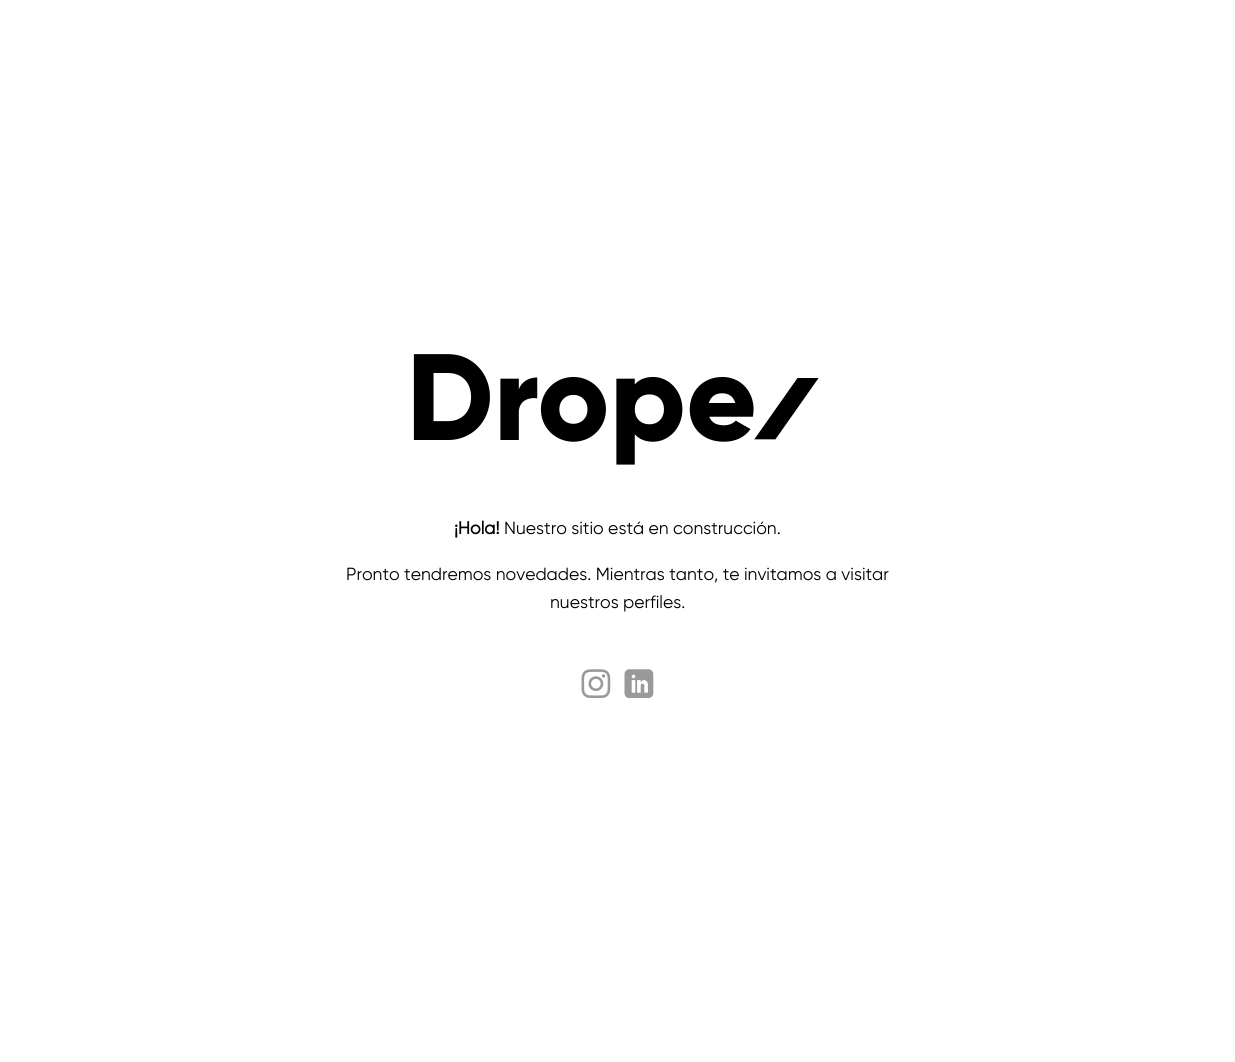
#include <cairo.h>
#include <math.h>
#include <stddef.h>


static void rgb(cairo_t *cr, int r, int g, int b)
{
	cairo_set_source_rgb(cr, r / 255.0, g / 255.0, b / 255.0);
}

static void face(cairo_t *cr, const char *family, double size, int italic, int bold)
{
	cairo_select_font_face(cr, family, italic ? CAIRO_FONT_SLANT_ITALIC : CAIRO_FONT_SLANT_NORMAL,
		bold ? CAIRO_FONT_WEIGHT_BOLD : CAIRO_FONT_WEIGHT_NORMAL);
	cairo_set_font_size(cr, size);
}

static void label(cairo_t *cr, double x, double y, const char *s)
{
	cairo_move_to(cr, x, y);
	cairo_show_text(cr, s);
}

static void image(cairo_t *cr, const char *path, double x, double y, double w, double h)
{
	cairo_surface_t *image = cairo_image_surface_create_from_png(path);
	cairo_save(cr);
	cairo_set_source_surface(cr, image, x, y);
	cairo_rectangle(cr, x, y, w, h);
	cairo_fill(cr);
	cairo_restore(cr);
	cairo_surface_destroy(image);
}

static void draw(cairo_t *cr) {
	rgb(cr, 255, 255, 255);
	cairo_paint(cr);
	image(cr, "image0.png", 413, 354, 406, 111);
	face(cr, "Gilroy", 17.6, 0, 1);
	rgb(cr, 0, 0, 0);
	label(cr, 454, 534, "¡Hola!");
	face(cr, "Gilroy", 17.6, 0, 0);
	label(cr, 504, 534, "Nuestro sitio está en construcción.");
	label(cr, 346, 580, "Pronto tendremos novedades. Mientras tanto, te invitamos a visitar");
	label(cr, 550, 608, "nuestros perfiles.");
	image(cr, "image1.png", 581, 669, 30, 30);
	image(cr, "image2.png", 624, 669, 30, 30);
}

int main(void) {
	cairo_surface_t *surface = cairo_image_surface_create(CAIRO_FORMAT_RGB24, 1235, 1062);
	cairo_t *cr = cairo_create(surface);
	cairo_font_options_t *options = cairo_font_options_create();
	cairo_font_options_set_hint_metrics(options, CAIRO_HINT_METRICS_OFF);
	cairo_font_options_set_hint_style(options, CAIRO_HINT_STYLE_NONE);
	cairo_set_font_options(cr, options);
	cairo_set_miter_limit(cr, 4);
	draw(cr);
	cairo_surface_write_to_png(surface, "render.png");
	cairo_font_options_destroy(options);
	cairo_destroy(cr);
	cairo_surface_destroy(surface);
	return 0;
}
